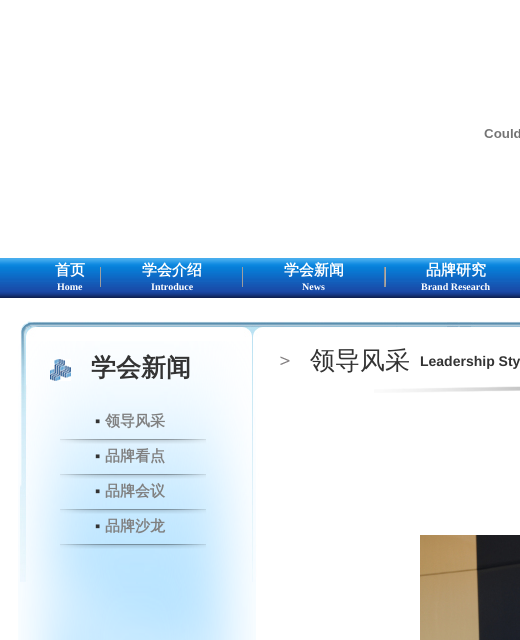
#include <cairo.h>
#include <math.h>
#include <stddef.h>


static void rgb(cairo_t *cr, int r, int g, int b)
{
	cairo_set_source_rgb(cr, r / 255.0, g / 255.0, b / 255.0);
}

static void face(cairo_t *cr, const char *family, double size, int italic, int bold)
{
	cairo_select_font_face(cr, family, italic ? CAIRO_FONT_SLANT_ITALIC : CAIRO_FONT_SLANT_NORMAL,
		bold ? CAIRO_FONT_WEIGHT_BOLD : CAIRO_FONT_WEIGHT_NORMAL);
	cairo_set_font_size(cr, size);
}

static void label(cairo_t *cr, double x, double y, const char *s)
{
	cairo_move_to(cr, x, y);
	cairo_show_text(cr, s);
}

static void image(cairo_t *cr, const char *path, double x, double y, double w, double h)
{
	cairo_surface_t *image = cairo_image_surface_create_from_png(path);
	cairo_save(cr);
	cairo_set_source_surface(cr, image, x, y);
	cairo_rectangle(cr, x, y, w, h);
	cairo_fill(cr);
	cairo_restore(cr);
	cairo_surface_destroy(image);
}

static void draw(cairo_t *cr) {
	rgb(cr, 255, 255, 255);
	cairo_paint(cr);
	image(cr, "image0.png", 484, 129, 36, 9);
	image(cr, "image1.png", 0, 258, 520, 40);
	face(cr, "WenQuanYi Zen Hei", 15, 0, 1);
	rgb(cr, 255, 255, 255);
	label(cr, 55, 275, "首页");
	face(cr, "Liberation Serif", 10, 0, 1);
	label(cr, 57, 290, "Home");
	image(cr, "image2.png", 100, 267, 1, 20);
	face(cr, "WenQuanYi Zen Hei", 15, 0, 1);
	label(cr, 142, 275, "学会介绍");
	face(cr, "Liberation Serif", 10, 0, 1);
	label(cr, 151, 290, "Introduce");
	image(cr, "image2.png", 242, 267, 1, 20);
	face(cr, "WenQuanYi Zen Hei", 15, 0, 1);
	label(cr, 284, 275, "学会新闻");
	face(cr, "Liberation Serif", 10, 0, 1);
	label(cr, 302, 290, "News");
	image(cr, "image3.png", 384, 267, 2, 20);
	face(cr, "WenQuanYi Zen Hei", 15, 0, 1);
	label(cr, 426, 275, "品牌研究");
	face(cr, "Liberation Serif", 10, 0, 1);
	label(cr, 421, 290, "Brand Research");
	image(cr, "image4.png", 20, 321, 500, 261);
	image(cr, "image5.png", 18, 341, 238, 299);
	image(cr, "image6.png", 50, 359, 21, 22);
	face(cr, "WenQuanYi Zen Hei", 25, 0, 1);
	rgb(cr, 51, 51, 51);
	label(cr, 91, 376, "学会新闻");
	face(cr, "Liberation Serif", 15, 0, 1);
	label(cr, 95, 426, "▪");
	face(cr, "WenQuanYi Zen Hei", 15, 0, 1);
	rgb(cr, 128, 128, 128);
	label(cr, 105, 426, "领导风采");
	image(cr, "image7.png", 60, 439, 146, 5);
	face(cr, "Liberation Serif", 15, 0, 1);
	rgb(cr, 51, 51, 51);
	label(cr, 95, 461, "▪");
	face(cr, "WenQuanYi Zen Hei", 15, 0, 1);
	rgb(cr, 128, 128, 128);
	label(cr, 105, 461, "品牌看点");
	image(cr, "image8.png", 60, 474, 146, 5);
	face(cr, "Liberation Serif", 15, 0, 1);
	rgb(cr, 51, 51, 51);
	label(cr, 95, 496, "▪");
	face(cr, "WenQuanYi Zen Hei", 15, 0, 1);
	rgb(cr, 128, 128, 128);
	label(cr, 105, 496, "品牌会议");
	image(cr, "image9.png", 60, 509, 146, 5);
	face(cr, "Liberation Serif", 15, 0, 1);
	rgb(cr, 51, 51, 51);
	label(cr, 95, 531, "▪");
	face(cr, "WenQuanYi Zen Hei", 15, 0, 1);
	rgb(cr, 128, 128, 128);
	label(cr, 105, 531, "品牌沙龙");
	image(cr, "image10.png", 60, 544, 146, 5);
	image(cr, "image11.png", 280, 356, 10, 9);
	face(cr, "WenQuanYi Zen Hei Medium", 25, 0, 0);
	rgb(cr, 51, 51, 51);
	label(cr, 310, 369, "领导风采");
	face(cr, "Liberation Sans", 14, 0, 1);
	label(cr, 420, 366, "Leadership Sty");
	image(cr, "image12.png", 374, 386, 146, 7);
	image(cr, "image13.png", 420, 535, 100, 105);
}

int main(void) {
	cairo_surface_t *surface = cairo_image_surface_create(CAIRO_FORMAT_RGB24, 520, 640);
	cairo_t *cr = cairo_create(surface);
	cairo_font_options_t *options = cairo_font_options_create();
	cairo_font_options_set_hint_metrics(options, CAIRO_HINT_METRICS_OFF);
	cairo_font_options_set_hint_style(options, CAIRO_HINT_STYLE_NONE);
	cairo_set_font_options(cr, options);
	cairo_set_miter_limit(cr, 4);
	draw(cr);
	cairo_surface_write_to_png(surface, "render.png");
	cairo_font_options_destroy(options);
	cairo_destroy(cr);
	cairo_surface_destroy(surface);
	return 0;
}
